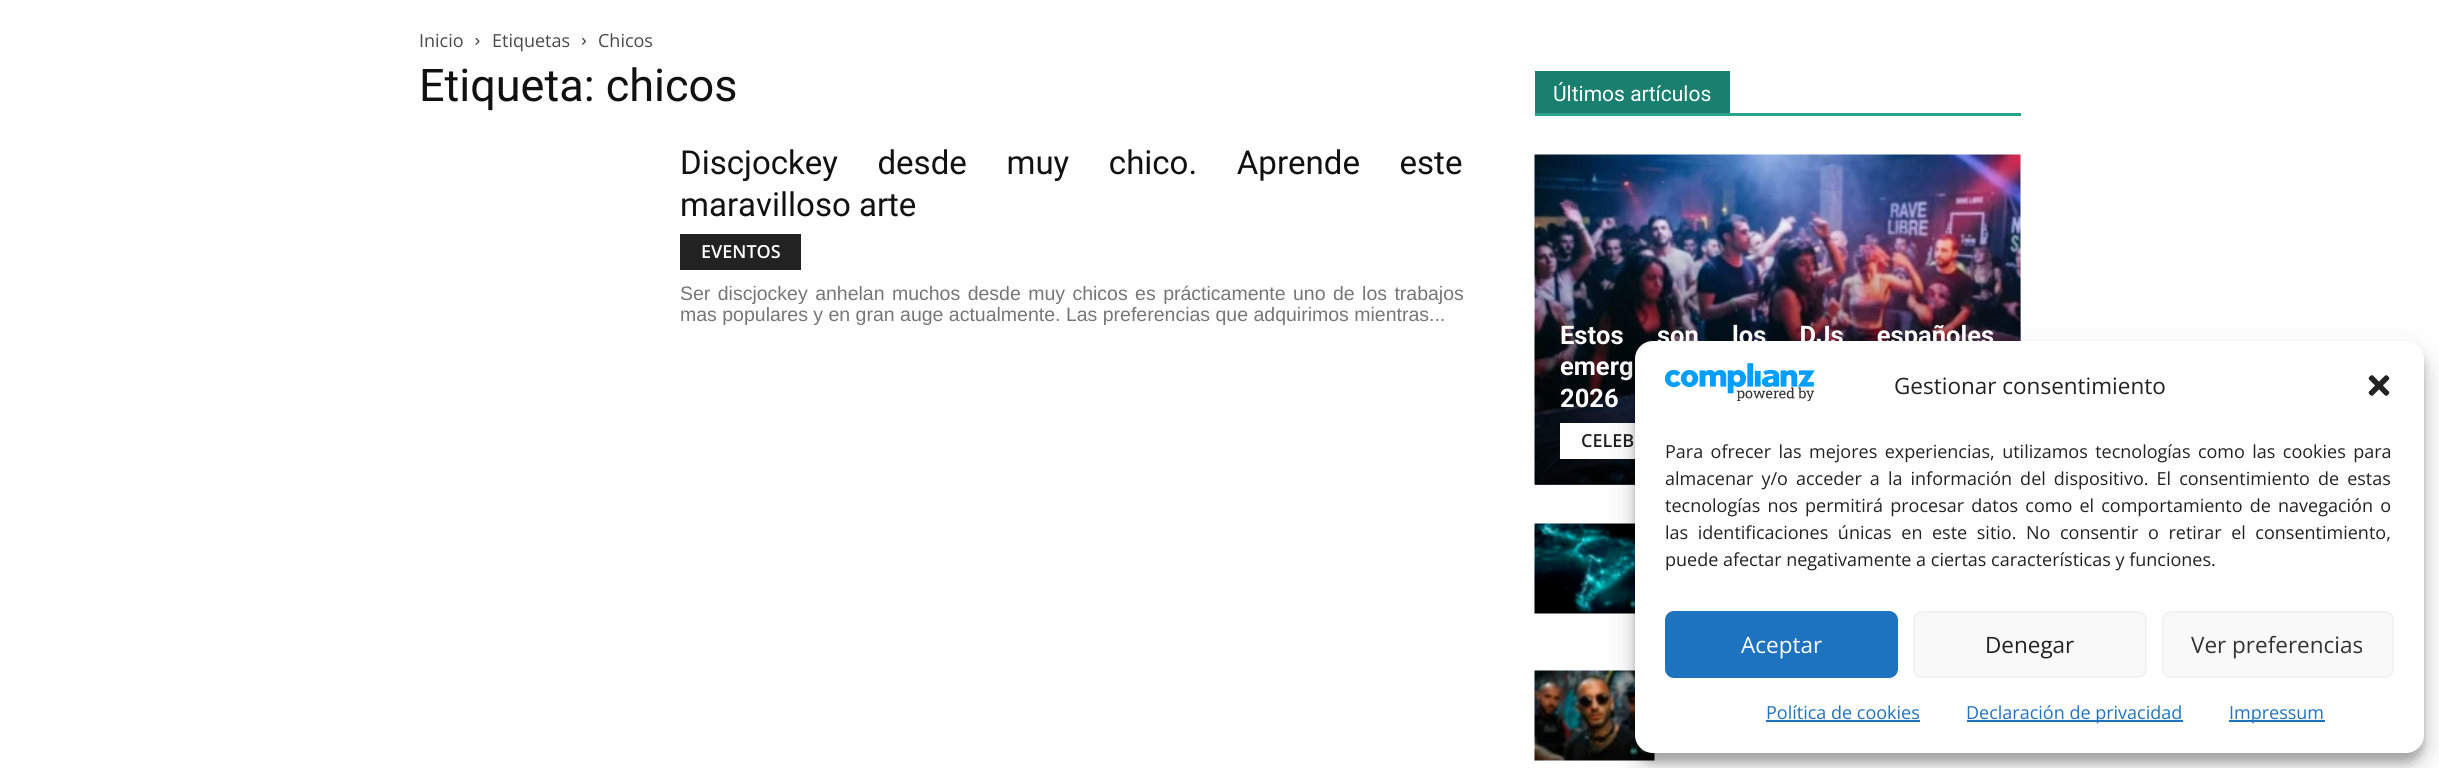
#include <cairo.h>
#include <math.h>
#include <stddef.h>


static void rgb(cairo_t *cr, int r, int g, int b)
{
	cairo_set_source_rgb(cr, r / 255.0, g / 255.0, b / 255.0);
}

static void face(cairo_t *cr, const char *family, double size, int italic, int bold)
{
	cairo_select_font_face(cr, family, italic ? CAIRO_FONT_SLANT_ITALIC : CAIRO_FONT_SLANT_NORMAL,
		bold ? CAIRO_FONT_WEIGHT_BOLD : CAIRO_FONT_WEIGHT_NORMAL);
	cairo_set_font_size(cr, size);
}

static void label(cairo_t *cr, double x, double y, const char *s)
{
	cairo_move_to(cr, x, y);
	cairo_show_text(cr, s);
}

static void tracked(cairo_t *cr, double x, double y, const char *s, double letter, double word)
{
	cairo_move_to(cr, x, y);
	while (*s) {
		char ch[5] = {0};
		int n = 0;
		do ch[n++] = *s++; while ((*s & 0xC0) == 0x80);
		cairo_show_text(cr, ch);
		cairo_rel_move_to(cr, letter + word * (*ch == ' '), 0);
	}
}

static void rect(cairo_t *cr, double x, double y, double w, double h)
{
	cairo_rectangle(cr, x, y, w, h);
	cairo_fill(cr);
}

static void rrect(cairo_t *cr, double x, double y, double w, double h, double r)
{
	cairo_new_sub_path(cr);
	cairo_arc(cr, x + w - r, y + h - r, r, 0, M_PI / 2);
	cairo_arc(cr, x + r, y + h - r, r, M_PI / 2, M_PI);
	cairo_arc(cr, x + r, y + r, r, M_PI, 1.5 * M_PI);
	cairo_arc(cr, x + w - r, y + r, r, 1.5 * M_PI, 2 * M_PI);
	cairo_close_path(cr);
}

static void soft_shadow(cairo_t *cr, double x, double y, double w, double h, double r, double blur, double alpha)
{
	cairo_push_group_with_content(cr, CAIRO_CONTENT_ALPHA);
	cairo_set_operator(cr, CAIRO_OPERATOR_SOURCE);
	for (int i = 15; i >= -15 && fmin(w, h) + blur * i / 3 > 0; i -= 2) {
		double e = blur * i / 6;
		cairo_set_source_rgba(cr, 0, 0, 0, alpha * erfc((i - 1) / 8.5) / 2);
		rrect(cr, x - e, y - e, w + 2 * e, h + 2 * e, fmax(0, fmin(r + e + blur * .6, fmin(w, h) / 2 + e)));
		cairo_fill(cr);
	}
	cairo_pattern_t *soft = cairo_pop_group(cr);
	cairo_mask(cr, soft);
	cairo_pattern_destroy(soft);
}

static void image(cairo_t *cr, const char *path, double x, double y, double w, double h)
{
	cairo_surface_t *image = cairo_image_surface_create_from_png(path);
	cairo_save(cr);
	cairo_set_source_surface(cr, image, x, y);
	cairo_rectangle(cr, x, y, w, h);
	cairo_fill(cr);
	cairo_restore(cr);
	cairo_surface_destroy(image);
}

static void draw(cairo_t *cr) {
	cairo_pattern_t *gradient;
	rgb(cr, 255, 255, 255);
	cairo_paint(cr);
	face(cr, "Open Sans", 18, 0, 0);
	rgb(cr, 73, 73, 73);
	label(cr, 419, 47, "Inicio");
	image(cr, "image0.png", 475, 37, 5, 8);
	label(cr, 492, 47, "Etiquetas");
	image(cr, "image1.png", 582, 37, 4, 8);
	label(cr, 598, 47, "Chicos");
	face(cr, "Roboto", 45, 0, 0);
	rgb(cr, 17, 17, 17);
	label(cr, 419, 101, "Etiqueta: chicos");
	face(cr, "Roboto", 33, 0, 0);
	tracked(cr, 680, 174, "Discjockey desde muy chico. Aprende este", 0, 31.5);
	label(cr, 680, 216, "maravilloso arte");
	rgb(cr, 34, 34, 34);
	rect(cr, 680, 234, 121, 36);
	face(cr, "Open Sans SemiBold", 18, 0, 0);
	rgb(cr, 255, 255, 255);
	label(cr, 701, 258, "EVENTOS");
	face(cr, "Liberation Sans", 19.5, 0, 0);
	rgb(cr, 118, 118, 118);
	tracked(cr, 680, 300, "Ser discjockey anhelan muchos desde muy chicos es prácticamente uno de los trabajos", 0, 2);
	label(cr, 680, 321, "mas populares y en gran auge actualmente. Las preferencias que adquirimos mientras...");
	rgb(cr, 40, 163, 142);
	rect(cr, 1535, 113, 486, 3);
	rgb(cr, 25, 127, 110);
	rect(cr, 1535, 71, 195, 42);
	face(cr, "Roboto", 21, 0, 0);
	rgb(cr, 255, 255, 255);
	label(cr, 1553, 101, "Últimos artículos");
	image(cr, "image2.png", 1534, 154, 487, 331);
	gradient = cairo_pattern_create_linear(1778, 221, 1778, 485);
	cairo_pattern_add_color_stop_rgba(gradient, 0, 0, 0, 0, 0);
	cairo_pattern_add_color_stop_rgba(gradient, 1, 0, 0, 0, 0.7);
	cairo_set_source(cr, gradient);
	cairo_pattern_destroy(gradient);
	rect(cr, 1535, 229, 486, 256);
	face(cr, "Roboto", 25.5, 0, 1);
	rgb(cr, 255, 255, 255);
	tracked(cr, 1560, 344, "Estos son los DJs españoles", 0, 27);
	tracked(cr, 1560, 375, "emerg", 0, 12);
	label(cr, 1560, 407, "2026");
	rect(cr, 1560, 423, 75, 36);
	face(cr, "Open Sans SemiBold", 18, 0, 0);
	rgb(cr, 34, 34, 34);
	label(cr, 1581, 447, "CELEB");
	image(cr, "image3.png", 1534, 523, 101, 91);
	image(cr, "image4.png", 1534, 670, 121, 91);
	rgb(cr, 0, 0, 0);
	soft_shadow(cr, 1635, 350, 789, 412, 18, 4.5, 0.23);
	soft_shadow(cr, 1635, 356, 789, 412, 18, 15, 0.19);
	rgb(cr, 255, 255, 255);
	rrect(cr, 1635, 341, 789, 412, 18);
	cairo_fill(cr);
	image(cr, "image5.png", 1665, 363, 150, 38);
	face(cr, "Open Sans", 22.5, 0, 0);
	rgb(cr, 34, 34, 34);
	label(cr, 1894, 394, "Gestionar consentimiento");
	image(cr, "image6.png", 2368, 375, 22, 21);
	face(cr, "Open Sans", 18, 0, 0);
	tracked(cr, 1665, 458, "Para ofrecer las mejores experiencias, utilizamos tecnologías como las cookies para", 0, 2.75);
	tracked(cr, 1665, 485, "almacenar y/o acceder a la información del dispositivo. El consentimiento de estas", 0, 3.4);
	tracked(cr, 1665, 512, "tecnologías nos permitirá procesar datos como el comportamiento de navegación o", 0, 2.5);
	tracked(cr, 1665, 539, "las identificaciones únicas en este sitio. No consentir o retirar el consentimiento,", 0, 4.9);
	label(cr, 1665, 566, "puede afectar negativamente a ciertas características y funciones.");
	rgb(cr, 30, 115, 190);
	rrect(cr, 1666, 612, 231, 65, 8);
	cairo_fill_preserve(cr);
	cairo_stroke(cr);
	face(cr, "Open Sans", 22.5, 0, 0);
	rgb(cr, 255, 255, 255);
	label(cr, 1741, 653, "Aceptar");
	rgb(cr, 249, 249, 249);
	rrect(cr, 1914, 612, 232, 65, 8);
	cairo_fill_preserve(cr);
	rgb(cr, 242, 242, 242);
	cairo_stroke(cr);
	rgb(cr, 34, 34, 34);
	label(cr, 1985, 653, "Denegar");
	rgb(cr, 249, 249, 249);
	rrect(cr, 2163, 612, 230, 65, 8);
	cairo_fill_preserve(cr);
	rgb(cr, 242, 242, 242);
	cairo_stroke(cr);
	rgb(cr, 51, 51, 51);
	label(cr, 2191, 653, "Ver preferencias");
	face(cr, "Open Sans", 18, 0, 0);
	rgb(cr, 30, 115, 190);
	label(cr, 1766, 719, "Política de cookies");
	rect(cr, 1766, 720, 154, 2);
	rect(cr, 1967, 720, 216, 2);
	label(cr, 1966, 719, "Declaración de privacidad");
	rect(cr, 2229, 720, 96, 2);
	label(cr, 2229, 719, "Impressum");
}

int main(void) {
	cairo_surface_t *surface = cairo_image_surface_create(CAIRO_FORMAT_RGB24, 2439, 768);
	cairo_t *cr = cairo_create(surface);
	cairo_font_options_t *options = cairo_font_options_create();
	cairo_font_options_set_hint_metrics(options, CAIRO_HINT_METRICS_OFF);
	cairo_font_options_set_hint_style(options, CAIRO_HINT_STYLE_NONE);
	cairo_set_font_options(cr, options);
	cairo_set_miter_limit(cr, 4);
	draw(cr);
	cairo_surface_write_to_png(surface, "render.png");
	cairo_font_options_destroy(options);
	cairo_destroy(cr);
	cairo_surface_destroy(surface);
	return 0;
}
